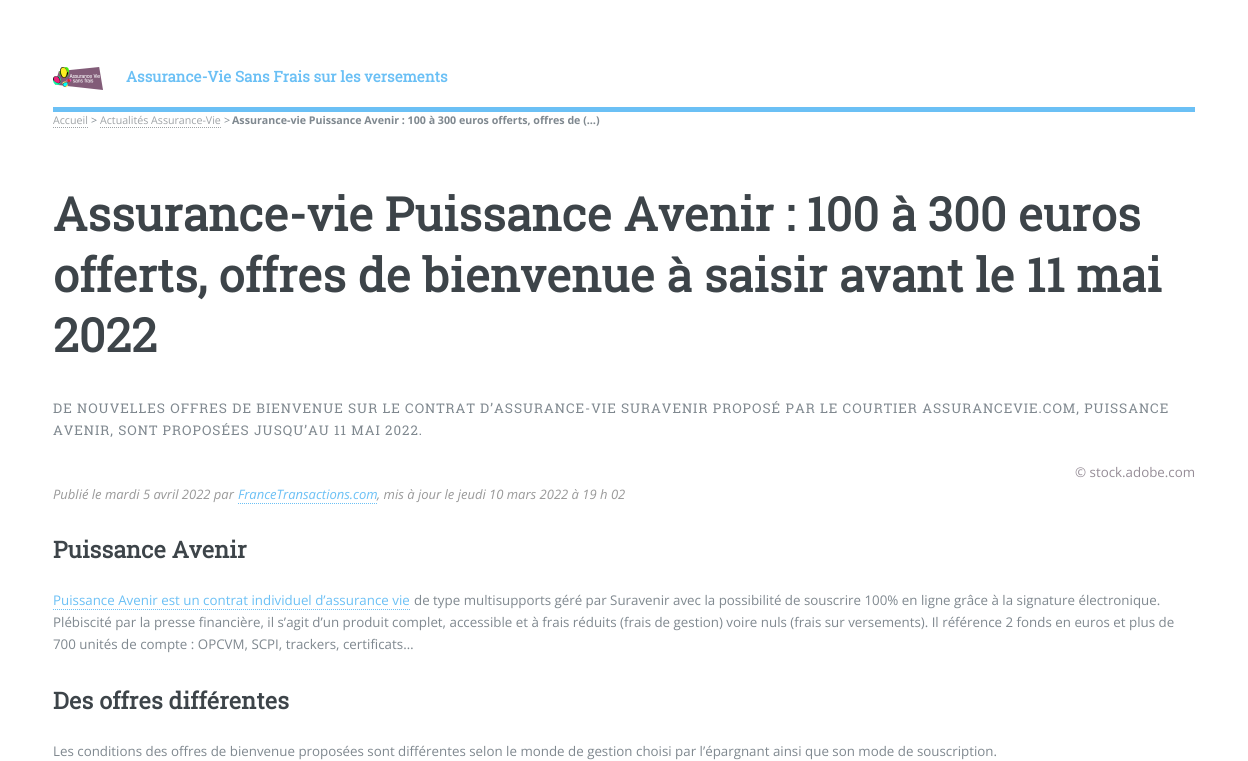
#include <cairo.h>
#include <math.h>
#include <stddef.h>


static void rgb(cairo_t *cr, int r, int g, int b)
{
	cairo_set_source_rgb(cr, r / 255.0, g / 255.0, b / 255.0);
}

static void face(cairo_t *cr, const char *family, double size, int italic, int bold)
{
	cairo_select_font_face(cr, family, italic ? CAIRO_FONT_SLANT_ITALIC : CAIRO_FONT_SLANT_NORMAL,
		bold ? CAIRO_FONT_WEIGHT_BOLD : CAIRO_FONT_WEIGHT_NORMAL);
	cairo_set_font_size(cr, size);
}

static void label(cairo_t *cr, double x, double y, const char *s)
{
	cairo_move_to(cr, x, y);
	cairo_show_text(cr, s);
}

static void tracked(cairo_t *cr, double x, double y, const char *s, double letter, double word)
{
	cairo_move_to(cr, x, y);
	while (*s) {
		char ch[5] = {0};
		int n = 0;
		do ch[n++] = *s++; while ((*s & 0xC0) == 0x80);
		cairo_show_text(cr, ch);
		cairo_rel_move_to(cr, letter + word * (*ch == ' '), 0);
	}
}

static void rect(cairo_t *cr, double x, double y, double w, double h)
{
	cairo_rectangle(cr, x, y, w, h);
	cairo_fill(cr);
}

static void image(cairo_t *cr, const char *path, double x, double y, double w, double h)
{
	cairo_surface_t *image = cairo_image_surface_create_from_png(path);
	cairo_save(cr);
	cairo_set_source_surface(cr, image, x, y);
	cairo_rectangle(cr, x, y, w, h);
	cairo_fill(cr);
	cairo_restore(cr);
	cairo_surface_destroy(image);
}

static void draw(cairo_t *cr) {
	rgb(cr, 255, 255, 255);
	cairo_paint(cr);
	rgb(cr, 107, 192, 245);
	rect(cr, 53, 107, 1142, 5);
	image(cr, "image0.png", 53, 67, 50, 23);
	face(cr, "Roboto Slab", 15, 0, 1);
	label(cr, 126, 82, "Assurance-Vie Sans Frais sur les versements");
	face(cr, "Open Sans", 10.65, 0, 0);
	rgb(cr, 159, 163, 166);
	label(cr, 53, 124, "Accueil");
	cairo_new_path(cr);
	cairo_move_to(cr, 53, 127.5);
	cairo_line_to(cr, 88, 127.5);
	cairo_set_line_width(cr, 1);
	cairo_set_dash(cr, (double[]){1, 1}, 2, 0);
	cairo_stroke(cr);
	rgb(cr, 127, 136, 143);
	label(cr, 91, 124, ">");
	rgb(cr, 159, 163, 166);
	label(cr, 100, 124, "Actualités Assurance-Vie");
	cairo_new_path(cr);
	cairo_move_to(cr, 100, 127.5);
	cairo_line_to(cr, 221, 127.5);
	cairo_stroke(cr);
	rgb(cr, 127, 136, 143);
	label(cr, 224, 124, ">");
	face(cr, "Open Sans", 10.65, 0, 1);
	label(cr, 232, 124, "Assurance-vie Puissance Avenir : 100 à 300 euros offerts, offres de (…)");
	face(cr, "Roboto Slab", 46.7, 0, 1);
	rgb(cr, 61, 68, 73);
	label(cr, 53, 231, "Assurance-vie Puissance Avenir : 100 à 300 euros");
	label(cr, 53, 292, "offerts, offres de bienvenue à saisir avant le 11 mai");
	label(cr, 53, 352, "2022");
	face(cr, "Roboto Slab", 13.33, 0, 0);
	rgb(cr, 127, 136, 143);
	tracked(cr, 53, 413, "DE NOUVELLES OFFRES DE BIENVENUE SUR LE CONTRAT D’ASSURANCE-VIE SURAVENIR PROPOSÉ PAR LE COURTIER ASSURANCEVIE.COM, PUISSANCE", 1, 0);
	tracked(cr, 53, 435, "AVENIR, SONT PROPOSÉES JUSQU’AU 11 MAI 2022.", 1, 0);
	face(cr, "Open Sans", 13.33, 0, 0);
	rgb(cr, 150, 141, 151);
	label(cr, 1075, 477, "© stock.adobe.com");
	face(cr, "Open Sans", 13, 1, 0);
	rgb(cr, 153, 153, 153);
	label(cr, 53, 499, "Publié le mardi 5 avril 2022 par");
	rgb(cr, 107, 192, 245);
	label(cr, 238, 499, "FranceTransactions.com");
	cairo_new_path(cr);
	cairo_move_to(cr, 238, 503.5);
	cairo_line_to(cr, 377, 503.5);
	cairo_stroke(cr);
	rgb(cr, 153, 153, 153);
	label(cr, 377, 499, ", mis à jour le jeudi 10 mars 2022 à 19 h 02");
	face(cr, "Roboto Slab", 23.25, 0, 1);
	rgb(cr, 61, 68, 73);
	label(cr, 53, 558, "Puissance Avenir");
	face(cr, "Open Sans", 13.33, 0, 0);
	rgb(cr, 107, 192, 245);
	label(cr, 53, 605, "Puissance Avenir est un contrat individuel d’assurance vie");
	cairo_new_path(cr);
	cairo_move_to(cr, 53, 609.5);
	cairo_line_to(cr, 410, 609.5);
	cairo_stroke(cr);
	rgb(cr, 127, 136, 143);
	label(cr, 414, 605, "de type multisupports géré par Suravenir avec la possibilité de souscrire 100% en ligne grâce à la signature électronique.");
	label(cr, 53, 627, "Plébiscité par la presse financière, il s’agit d’un produit complet, accessible et à frais réduits (frais de gestion) voire nuls (frais sur versements). Il référence 2 fonds en euros et plus de");
	label(cr, 53, 649, "700 unités de compte : OPCVM, SCPI, trackers, certificats…");
	face(cr, "Roboto Slab", 23.25, 0, 1);
	rgb(cr, 61, 68, 73);
	label(cr, 53, 709, "Des offres différentes");
	face(cr, "Open Sans", 13.33, 0, 0);
	rgb(cr, 127, 136, 143);
	label(cr, 53, 756, "Les conditions des offres de bienvenue proposées sont différentes selon le monde de gestion choisi par l’épargnant ainsi que son mode de souscription.");
}

int main(void) {
	cairo_surface_t *surface = cairo_image_surface_create(CAIRO_FORMAT_RGB24, 1248, 761);
	cairo_t *cr = cairo_create(surface);
	cairo_font_options_t *options = cairo_font_options_create();
	cairo_font_options_set_hint_metrics(options, CAIRO_HINT_METRICS_OFF);
	cairo_font_options_set_hint_style(options, CAIRO_HINT_STYLE_NONE);
	cairo_set_font_options(cr, options);
	cairo_set_miter_limit(cr, 4);
	draw(cr);
	cairo_surface_write_to_png(surface, "render.png");
	cairo_font_options_destroy(options);
	cairo_destroy(cr);
	cairo_surface_destroy(surface);
	return 0;
}
